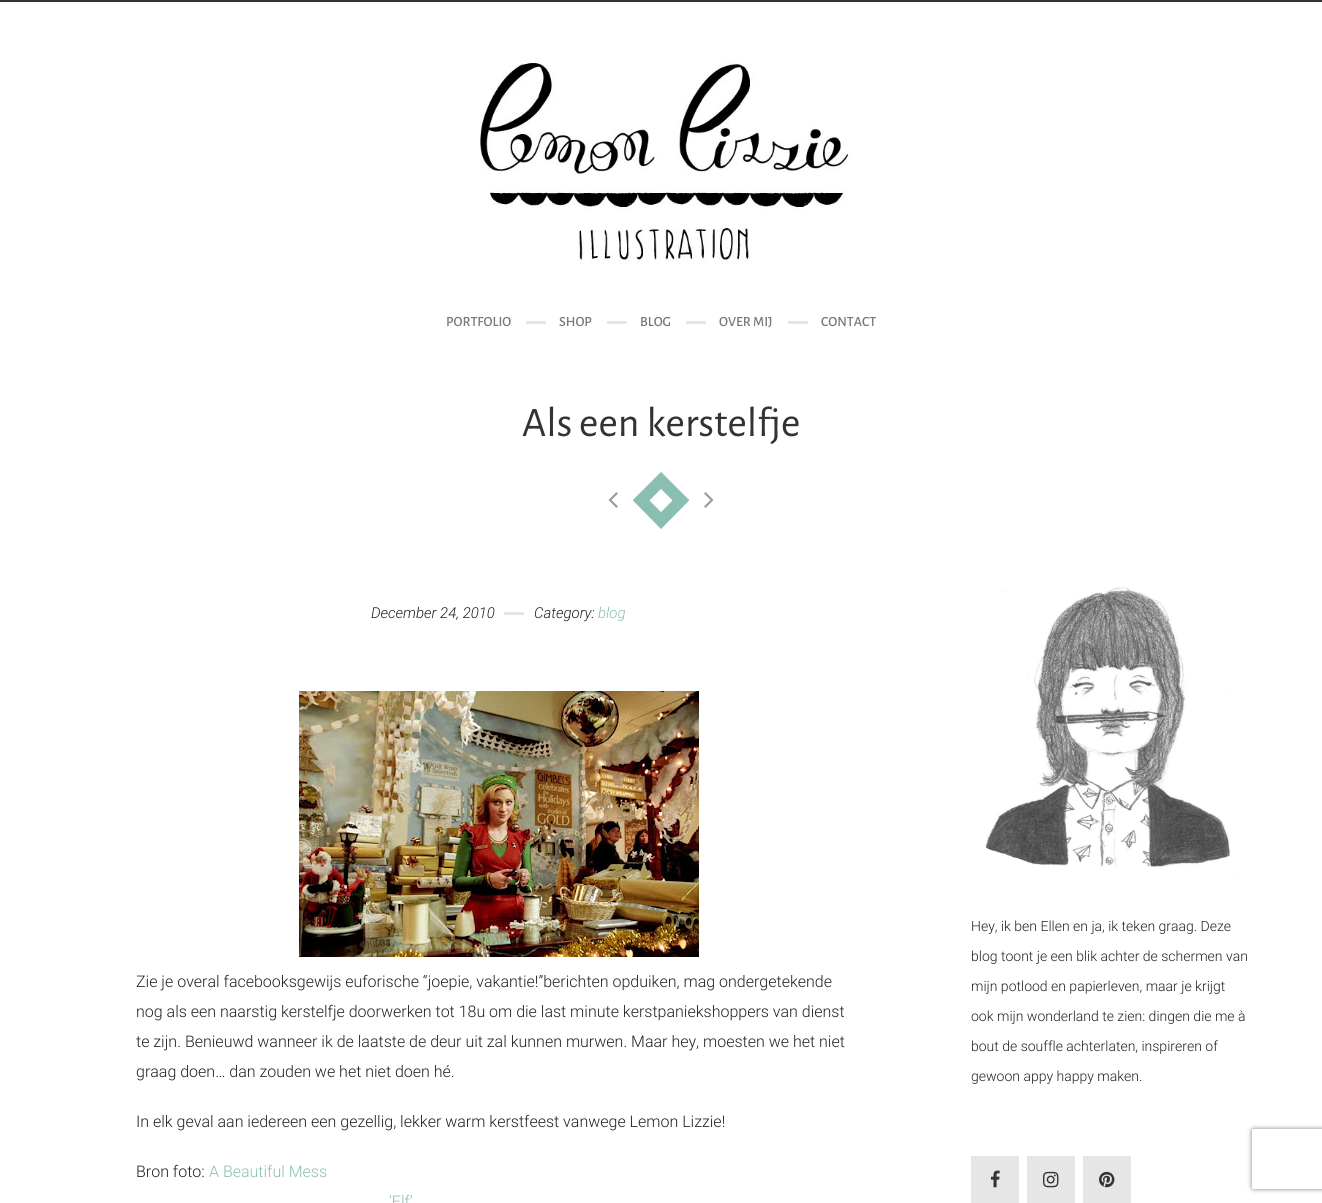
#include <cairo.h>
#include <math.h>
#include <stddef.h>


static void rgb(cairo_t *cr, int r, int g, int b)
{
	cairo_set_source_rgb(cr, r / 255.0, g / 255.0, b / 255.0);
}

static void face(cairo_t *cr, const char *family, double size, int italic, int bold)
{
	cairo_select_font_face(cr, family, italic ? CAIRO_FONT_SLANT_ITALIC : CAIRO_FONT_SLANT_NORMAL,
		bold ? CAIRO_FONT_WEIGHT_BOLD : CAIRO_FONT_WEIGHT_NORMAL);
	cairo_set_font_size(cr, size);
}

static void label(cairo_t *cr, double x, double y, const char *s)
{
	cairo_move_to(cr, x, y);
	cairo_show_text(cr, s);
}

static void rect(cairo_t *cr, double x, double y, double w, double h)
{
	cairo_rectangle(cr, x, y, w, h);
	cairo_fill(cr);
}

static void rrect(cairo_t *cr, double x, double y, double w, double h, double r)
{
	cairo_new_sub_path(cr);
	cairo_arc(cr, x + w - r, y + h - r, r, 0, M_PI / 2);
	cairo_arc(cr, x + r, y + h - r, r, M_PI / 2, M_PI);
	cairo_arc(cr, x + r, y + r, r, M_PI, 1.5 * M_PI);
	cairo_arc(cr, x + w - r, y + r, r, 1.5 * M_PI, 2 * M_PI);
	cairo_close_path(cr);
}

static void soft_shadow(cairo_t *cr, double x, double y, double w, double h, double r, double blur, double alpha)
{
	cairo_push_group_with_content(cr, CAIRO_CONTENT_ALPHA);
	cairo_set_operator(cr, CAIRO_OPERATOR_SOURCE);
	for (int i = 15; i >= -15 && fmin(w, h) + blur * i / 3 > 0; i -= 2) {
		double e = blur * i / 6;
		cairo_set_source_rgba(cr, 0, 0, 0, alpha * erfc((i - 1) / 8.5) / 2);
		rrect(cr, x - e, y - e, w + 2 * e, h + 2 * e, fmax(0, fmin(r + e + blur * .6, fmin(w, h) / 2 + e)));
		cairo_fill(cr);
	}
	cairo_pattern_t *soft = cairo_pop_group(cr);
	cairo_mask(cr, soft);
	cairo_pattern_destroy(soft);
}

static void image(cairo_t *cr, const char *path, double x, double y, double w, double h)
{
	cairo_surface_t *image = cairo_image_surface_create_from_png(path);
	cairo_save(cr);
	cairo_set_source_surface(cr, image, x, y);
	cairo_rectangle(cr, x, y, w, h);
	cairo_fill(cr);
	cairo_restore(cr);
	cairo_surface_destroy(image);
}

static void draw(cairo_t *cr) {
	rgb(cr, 255, 255, 255);
	cairo_paint(cr);
	rgb(cr, 51, 51, 51);
	rect(cr, 0, 0, 1322, 2);
	image(cr, "image0.png", 479, 60, 373, 204);
	face(cr, "Alegreya Sans Medium", 14, 0, 0);
	rgb(cr, 119, 119, 119);
	label(cr, 446, 326, "PORTFOLIO");
	rgb(cr, 230, 230, 230);
	rect(cr, 526, 321, 20, 3);
	rgb(cr, 119, 119, 119);
	label(cr, 559, 326, "SHOP");
	rgb(cr, 230, 230, 230);
	rect(cr, 607, 321, 20, 3);
	rgb(cr, 119, 119, 119);
	label(cr, 640, 326, "BLOG");
	rgb(cr, 230, 230, 230);
	rect(cr, 686, 321, 20, 3);
	rgb(cr, 119, 119, 119);
	label(cr, 719, 326, "OVER MIJ");
	rgb(cr, 230, 230, 230);
	rect(cr, 788, 321, 20, 3);
	rgb(cr, 119, 119, 119);
	label(cr, 821, 326, "CONTACT");
	face(cr, "Alegreya Sans", 42, 0, 0);
	rgb(cr, 51, 51, 51);
	label(cr, 522, 436, "Als een kerstelfje");
	image(cr, "image1.png", 608, 492, 10, 16);
	rgb(cr, 138, 190, 178);
	cairo_new_path(cr);
	cairo_move_to(cr, 661, 472);
	cairo_line_to(cr, 689, 500);
	cairo_line_to(cr, 661, 529);
	cairo_line_to(cr, 633, 500);
	cairo_close_path(cr);
	cairo_fill(cr);
	cairo_new_path(cr);
	cairo_move_to(cr, 661, 474.5);
	cairo_line_to(cr, 687, 500.5);
	cairo_line_to(cr, 661, 526.5);
	cairo_line_to(cr, 635, 500.5);
	cairo_close_path(cr);
	cairo_set_line_width(cr, 3);
	cairo_stroke(cr);
	rgb(cr, 255, 255, 255);
	cairo_new_path(cr);
	cairo_move_to(cr, 661, 489);
	cairo_line_to(cr, 672.5, 500.5);
	cairo_line_to(cr, 661, 512);
	cairo_line_to(cr, 649.5, 500.5);
	cairo_close_path(cr);
	cairo_fill(cr);
	cairo_new_path(cr);
	cairo_move_to(cr, 661, 491.5);
	cairo_line_to(cr, 670, 500.5);
	cairo_line_to(cr, 661, 509.5);
	cairo_line_to(cr, 652, 500.5);
	cairo_close_path(cr);
	cairo_stroke(cr);
	image(cr, "image2.png", 704, 492, 10, 16);
	face(cr, "Roboto Light", 15, 1, 0);
	rgb(cr, 34, 34, 34);
	label(cr, 371, 618, "December 24, 2010");
	rgb(cr, 230, 230, 230);
	rect(cr, 504, 612, 20, 3);
	rgb(cr, 34, 34, 34);
	label(cr, 534, 618, "Category:");
	rgb(cr, 138, 190, 178);
	label(cr, 598, 618, "blog");
	image(cr, "image3.png", 299, 691, 400, 266);
	face(cr, "Roboto Light", 16, 0, 0);
	rgb(cr, 34, 34, 34);
	label(cr, 136, 987, "Zie je overal facebooksgewijs euforische “joepie, vakantie!”berichten opduiken, mag ondergetekende");
	label(cr, 136, 1017, "nog als een naarstig kerstelfje doorwerken tot 18u om die last minute kerstpaniekshoppers van dienst");
	label(cr, 136, 1047, "te zijn. Benieuwd wanneer ik de laatste de deur uit zal kunnen murwen. Maar hey, moesten we het niet");
	label(cr, 136, 1077, "graag doen… dan zouden we het niet doen hé.");
	label(cr, 136, 1127, "In elk geval aan iedereen een gezellig, lekker warm kerstfeest vanwege Lemon Lizzie!");
	label(cr, 136, 1177, "Bron foto:");
	rgb(cr, 138, 190, 178);
	label(cr, 209, 1177, "A Beautiful Mess");
	label(cr, 389, 1207, "‘Elf’");
	image(cr, "image4.png", 985, 587, 264, 296);
	face(cr, "Roboto Light", 14, 0, 0);
	rgb(cr, 34, 34, 34);
	label(cr, 971, 931, "Hey, ik ben Ellen en ja, ik teken graag. Deze");
	label(cr, 971, 961, "blog toont je een blik achter de schermen van");
	label(cr, 971, 991, "mijn potlood en papierleven, maar je krijgt");
	label(cr, 971, 1021, "ook mijn wonderland te zien: dingen die me à");
	label(cr, 971, 1051, "bout de souffle achterlaten, inspireren of");
	label(cr, 971, 1081, "gewoon appy happy maken.");
	rgb(cr, 230, 230, 230);
	rect(cr, 971, 1156, 48, 47);
	image(cr, "image5.png", 990, 1170, 10, 18);
	rect(cr, 1027, 1156, 48, 47);
	image(cr, "image6.png", 1043, 1171, 16, 17);
	rect(cr, 1083, 1156, 48, 47);
	image(cr, "image7.png", 1099, 1171, 16, 17);
	cairo_save(cr);
	cairo_set_fill_rule(cr, CAIRO_FILL_RULE_EVEN_ODD);
	cairo_new_path(cr);
	cairo_move_to(cr, 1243, 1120);
	cairo_line_to(cr, 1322, 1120);
	cairo_line_to(cr, 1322, 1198);
	cairo_line_to(cr, 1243, 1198);
	cairo_close_path(cr);
	cairo_move_to(cr, 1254, 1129);
	cairo_line_to(cr, 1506, 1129);
	cairo_curve_to(cr, 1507, 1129, 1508, 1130, 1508, 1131);
	cairo_line_to(cr, 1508, 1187);
	cairo_curve_to(cr, 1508, 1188, 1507, 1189, 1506, 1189);
	cairo_line_to(cr, 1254, 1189);
	cairo_curve_to(cr, 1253, 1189, 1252, 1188, 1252, 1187);
	cairo_line_to(cr, 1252, 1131);
	cairo_curve_to(cr, 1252, 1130, 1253, 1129, 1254, 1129);
	cairo_close_path(cr);
	cairo_clip(cr);
	rgb(cr, 128, 128, 128);
	soft_shadow(cr, 1252, 1129, 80, 60, 2, 2.5, 1);
	cairo_restore(cr);
}

int main(void) {
	cairo_surface_t *surface = cairo_image_surface_create(CAIRO_FORMAT_RGB24, 1322, 1203);
	cairo_t *cr = cairo_create(surface);
	cairo_font_options_t *options = cairo_font_options_create();
	cairo_font_options_set_hint_metrics(options, CAIRO_HINT_METRICS_OFF);
	cairo_font_options_set_hint_style(options, CAIRO_HINT_STYLE_NONE);
	cairo_set_font_options(cr, options);
	cairo_set_miter_limit(cr, 4);
	draw(cr);
	cairo_surface_write_to_png(surface, "render.png");
	cairo_font_options_destroy(options);
	cairo_destroy(cr);
	cairo_surface_destroy(surface);
	return 0;
}
